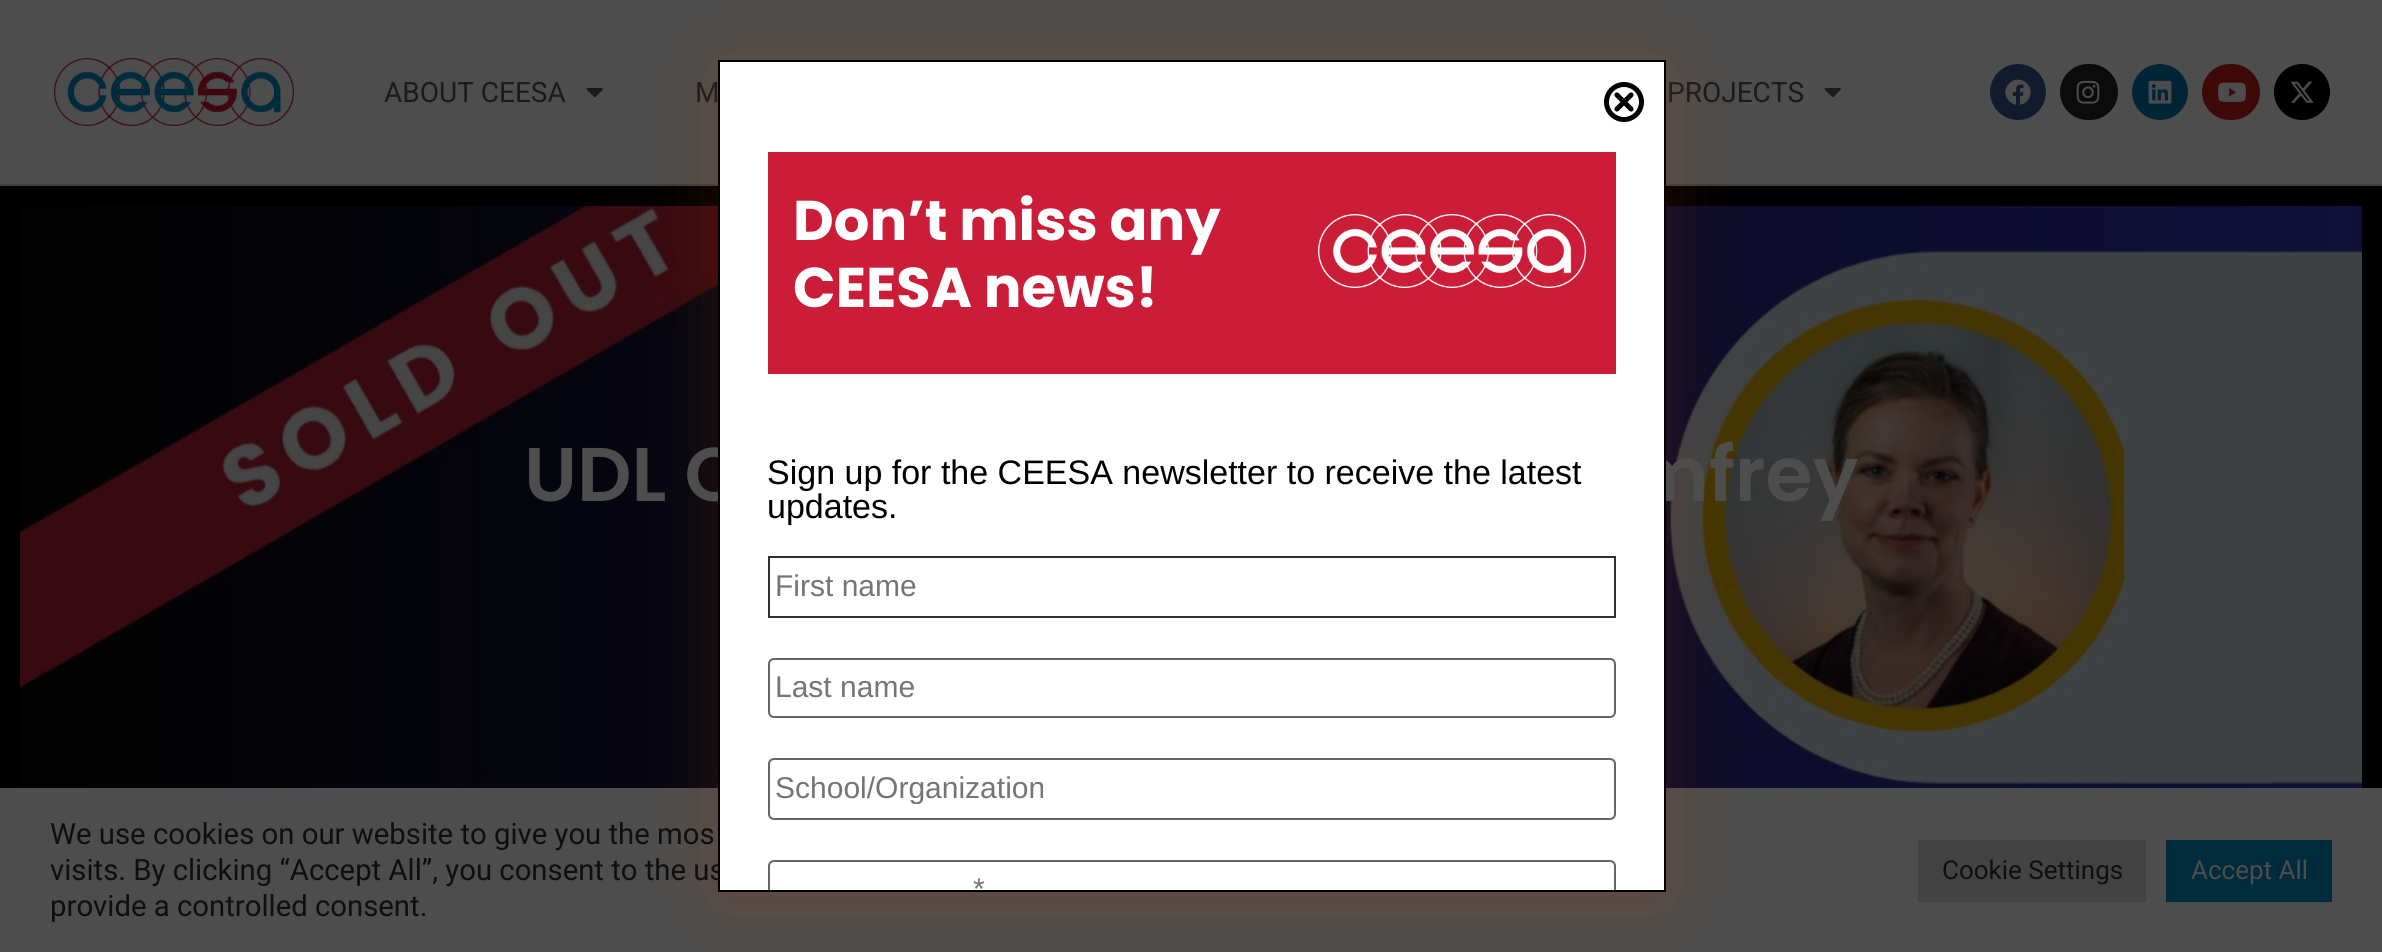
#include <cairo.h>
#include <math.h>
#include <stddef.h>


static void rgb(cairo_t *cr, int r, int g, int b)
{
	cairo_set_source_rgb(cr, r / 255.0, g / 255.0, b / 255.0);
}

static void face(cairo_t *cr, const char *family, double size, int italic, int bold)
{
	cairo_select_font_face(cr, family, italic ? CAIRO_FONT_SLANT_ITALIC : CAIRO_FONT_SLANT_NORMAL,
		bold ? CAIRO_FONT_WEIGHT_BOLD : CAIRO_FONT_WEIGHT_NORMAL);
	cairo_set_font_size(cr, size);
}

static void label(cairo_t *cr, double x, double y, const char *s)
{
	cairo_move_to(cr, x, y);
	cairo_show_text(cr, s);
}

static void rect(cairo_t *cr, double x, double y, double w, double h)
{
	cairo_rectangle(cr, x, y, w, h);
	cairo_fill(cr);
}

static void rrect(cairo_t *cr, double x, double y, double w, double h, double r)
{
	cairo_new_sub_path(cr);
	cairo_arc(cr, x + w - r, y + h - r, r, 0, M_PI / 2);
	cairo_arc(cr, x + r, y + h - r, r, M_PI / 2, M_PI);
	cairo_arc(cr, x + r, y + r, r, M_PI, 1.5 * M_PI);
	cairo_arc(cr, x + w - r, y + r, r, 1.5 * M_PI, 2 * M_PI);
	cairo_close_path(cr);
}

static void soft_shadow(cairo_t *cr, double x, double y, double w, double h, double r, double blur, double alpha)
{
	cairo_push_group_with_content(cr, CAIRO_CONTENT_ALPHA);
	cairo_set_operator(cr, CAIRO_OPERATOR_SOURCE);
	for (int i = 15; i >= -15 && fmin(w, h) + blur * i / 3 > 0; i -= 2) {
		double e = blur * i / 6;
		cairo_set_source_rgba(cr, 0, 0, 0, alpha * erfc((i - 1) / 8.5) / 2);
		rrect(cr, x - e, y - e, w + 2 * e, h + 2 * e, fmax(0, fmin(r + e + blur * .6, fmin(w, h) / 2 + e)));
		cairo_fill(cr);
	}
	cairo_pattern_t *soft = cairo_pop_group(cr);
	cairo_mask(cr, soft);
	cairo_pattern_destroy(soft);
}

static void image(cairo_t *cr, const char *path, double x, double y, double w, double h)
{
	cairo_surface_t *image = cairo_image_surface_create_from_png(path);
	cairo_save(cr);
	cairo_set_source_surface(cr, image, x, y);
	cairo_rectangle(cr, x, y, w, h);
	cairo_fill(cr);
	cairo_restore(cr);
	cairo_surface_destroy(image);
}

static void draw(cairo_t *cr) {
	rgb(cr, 77, 77, 77);
	cairo_paint(cr);
	rgb(cr, 63, 63, 63);
	rect(cr, 0, 184, 2382, 2);
	image(cr, "image0.png", 54, 58, 240, 68);
	face(cr, "Roboto", 28, 0, 0);
	rgb(cr, 25, 27, 29);
	label(cr, 384, 102, "ABOUT CEESA");
	image(cr, "image1.png", 586, 88, 17, 10);
	label(cr, 695, 102, "M");
	label(cr, 1667, 102, "PROJECTS");
	image(cr, "image1.png", 1824, 88, 17, 10);
	rgb(cr, 18, 27, 46);
	cairo_arc(cr, 2018, 92, 28, 0, 2 * M_PI);
	cairo_fill(cr);
	image(cr, "image2.png", 2005, 79, 26, 26);
	rgb(cr, 11, 11, 11);
	rrect(cr, 2060, 64, 58, 56, 28);
	cairo_fill(cr);
	image(cr, "image3.png", 2076, 80, 24, 24);
	rgb(cr, 0, 36, 54);
	cairo_arc(cr, 2160, 92, 28, 0, 2 * M_PI);
	cairo_fill(cr);
	image(cr, "image4.png", 2148, 80, 24, 24);
	rgb(cr, 62, 10, 9);
	rrect(cr, 2202, 64, 58, 56, 28);
	cairo_fill(cr);
	image(cr, "image5.png", 2218, 82, 28, 20);
	rgb(cr, 0, 0, 0);
	cairo_arc(cr, 2302, 92, 28, 0, 2 * M_PI);
	cairo_fill(cr);
	image(cr, "image6.png", 2290, 81, 24, 22);
	rect(cr, 0, 186, 2382, 602);
	image(cr, "image9.png", 20, 206, 2342, 582);
	rgb(cr, 195, 65, 2);
	soft_shadow(cr, 718, 68, 948, 832, 0, 35, 0.2);
	face(cr, "Poppins SemiBold", 76, 0, 0);
	rgb(cr, 77, 77, 77);
	label(cr, 524, 501, "UDL C");
	label(cr, 1629, 501, "mfrey");
	face(cr, "Roboto", 29.3, 0, 0);
	rgb(cr, 15, 15, 15);
	label(cr, 50, 880, "visits. By clicking “Accept All”, you consent to the us");
	rgb(cr, 255, 255, 255);
	cairo_rectangle(cr, 719, 61, 946, 830);
	cairo_fill_preserve(cr);
	rgb(cr, 0, 0, 0);
	cairo_stroke(cr);
	image(cr, "image7.png", 1604, 82, 40, 40);
	rgb(cr, 203, 28, 56);
	rect(cr, 768, 152, 848, 222);
	face(cr, "Poppins", 56, 0, 1);
	rgb(cr, 255, 255, 255);
	label(cr, 793, 240, "Don’t miss any");
	label(cr, 793, 307, "CEESA news!");
	image(cr, "image8.png", 1318, 214, 268, 74);
	face(cr, "Liberation Sans", 34, 0, 0);
	rgb(cr, 0, 0, 0);
	label(cr, 767, 484, "Sign up for the CEESA newsletter to receive the latest");
	label(cr, 767, 518, "updates.");
	cairo_rectangle(cr, 769, 557, 846, 60);
	rgb(cr, 49, 49, 49);
	cairo_stroke(cr);
	face(cr, "Liberation Sans", 30, 0, 0);
	rgb(cr, 117, 117, 117);
	label(cr, 775, 596, "First name");
	rrect(cr, 769, 659, 846, 58, 5);
	rgb(cr, 102, 102, 102);
	cairo_stroke(cr);
	rgb(cr, 117, 117, 117);
	label(cr, 775, 697, "Last name");
	rrect(cr, 769, 759, 846, 60, 5);
	rgb(cr, 102, 102, 102);
	cairo_stroke(cr);
	cairo_save(cr);
	cairo_rectangle(cr, 776, 770, 832, 34);
	cairo_clip(cr);
	rgb(cr, 117, 117, 117);
	label(cr, 775, 798, "School/Organization");
	cairo_restore(cr);
	cairo_save(cr);
	cairo_rectangle(cr, 720, 62, 944, 828);
	cairo_clip(cr);
	rrect(cr, 769, 861, 846, 58, 5);
	cairo_stroke(cr);
	cairo_restore(cr);
	rgb(cr, 117, 117, 117);
	label(cr, 973, 899, "*");
	face(cr, "Roboto", 29.3, 0, 0);
	rgb(cr, 15, 15, 15);
	label(cr, 50, 844, "We use cookies on our website to give you the mos");
	label(cr, 50, 916, "provide a controlled consent.");
	rgb(cr, 67, 67, 67);
	rect(cr, 1918, 840, 228, 62);
	face(cr, "Roboto", 26, 0, 0);
	rgb(cr, 15, 15, 15);
	label(cr, 1942, 879, "Cookie Settings");
	rgb(cr, 0, 43, 61);
	rect(cr, 2166, 840, 166, 62);
	rgb(cr, 77, 77, 77);
	label(cr, 2191, 879, "Accept All");
}

int main(void) {
	cairo_surface_t *surface = cairo_image_surface_create(CAIRO_FORMAT_RGB24, 2382, 952);
	cairo_t *cr = cairo_create(surface);
	cairo_font_options_t *options = cairo_font_options_create();
	cairo_font_options_set_hint_metrics(options, CAIRO_HINT_METRICS_OFF);
	cairo_font_options_set_hint_style(options, CAIRO_HINT_STYLE_NONE);
	cairo_set_font_options(cr, options);
	cairo_set_miter_limit(cr, 4);
	draw(cr);
	cairo_surface_write_to_png(surface, "render.png");
	cairo_font_options_destroy(options);
	cairo_destroy(cr);
	cairo_surface_destroy(surface);
	return 0;
}
